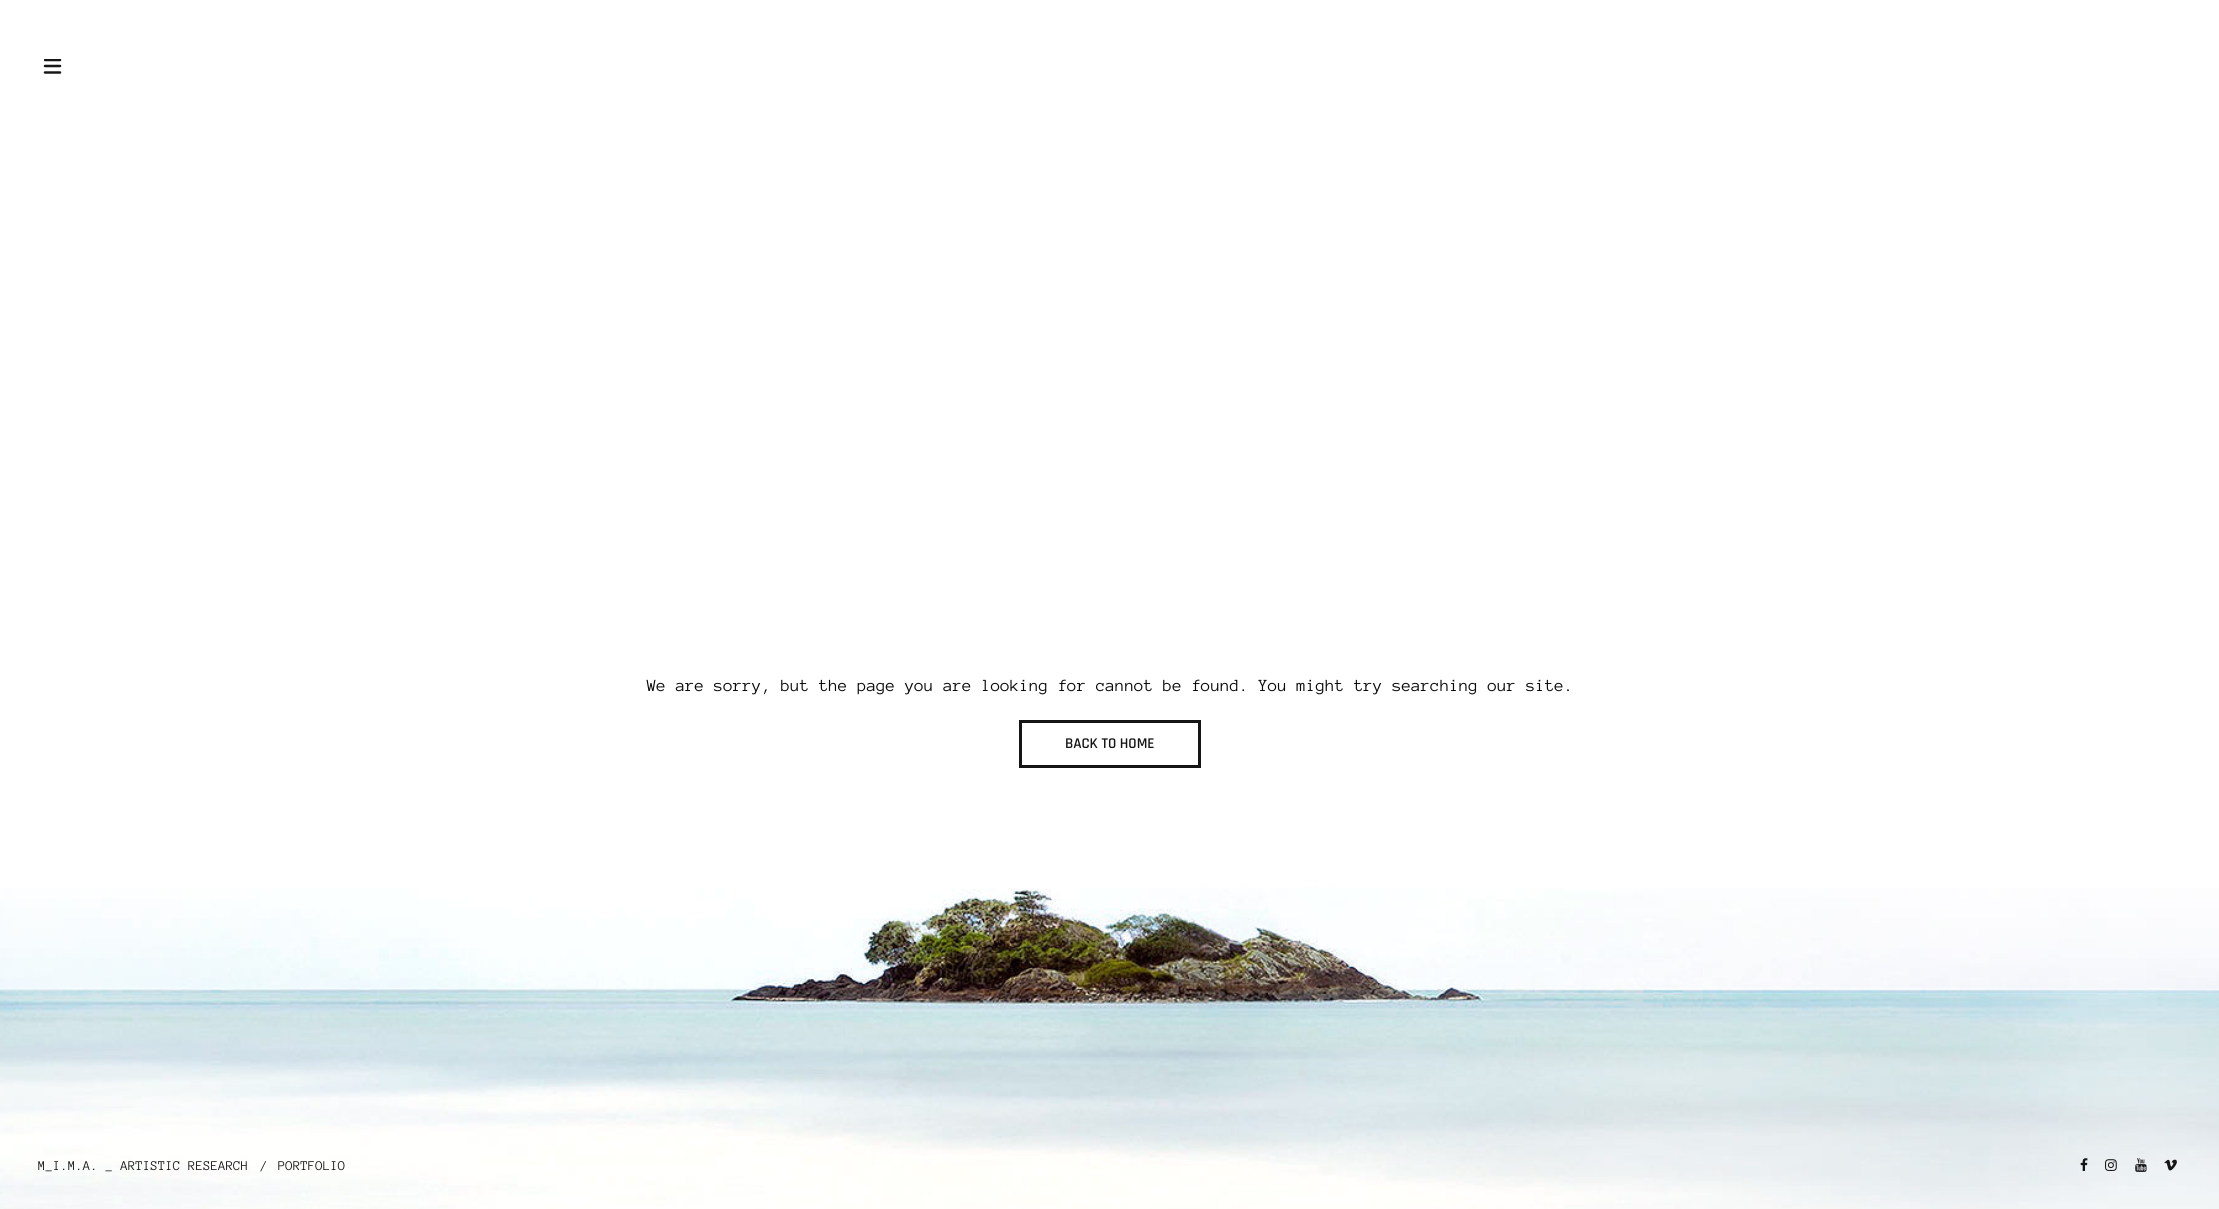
#include <cairo.h>
#include <math.h>
#include <stddef.h>


static void rgb(cairo_t *cr, int r, int g, int b)
{
	cairo_set_source_rgb(cr, r / 255.0, g / 255.0, b / 255.0);
}

static void face(cairo_t *cr, const char *family, double size, int italic, int bold)
{
	cairo_select_font_face(cr, family, italic ? CAIRO_FONT_SLANT_ITALIC : CAIRO_FONT_SLANT_NORMAL,
		bold ? CAIRO_FONT_WEIGHT_BOLD : CAIRO_FONT_WEIGHT_NORMAL);
	cairo_set_font_size(cr, size);
}

static void label(cairo_t *cr, double x, double y, const char *s)
{
	cairo_move_to(cr, x, y);
	cairo_show_text(cr, s);
}

static void image(cairo_t *cr, const char *path, double x, double y, double w, double h)
{
	cairo_surface_t *image = cairo_image_surface_create_from_png(path);
	cairo_save(cr);
	cairo_set_source_surface(cr, image, x, y);
	cairo_rectangle(cr, x, y, w, h);
	cairo_fill(cr);
	cairo_restore(cr);
	cairo_surface_destroy(image);
}

static void draw(cairo_t *cr) {
	rgb(cr, 255, 255, 255);
	cairo_paint(cr);
	image(cr, "image0.png", 0, 0, 2219, 1209);
	cairo_save(cr);
	cairo_rectangle(cr, 44, 59, 25, 15);
	cairo_clip(cr);
	cairo_new_path(cr);
	cairo_move_to(cr, 45, 60);
	cairo_line_to(cr, 60, 60);
	rgb(cr, 22, 22, 22);
	cairo_set_line_width(cr, 2.5);
	cairo_set_line_cap(cr, CAIRO_LINE_CAP_ROUND);
	cairo_set_line_join(cr, CAIRO_LINE_JOIN_ROUND);
	cairo_stroke(cr);
	cairo_restore(cr);
	cairo_new_path(cr);
	cairo_move_to(cr, 45, 66);
	cairo_line_to(cr, 60, 66);
	cairo_move_to(cr, 45, 72.5);
	cairo_line_to(cr, 60, 72.5);
	rgb(cr, 22, 22, 22);
	cairo_set_line_width(cr, 2.5);
	cairo_set_line_cap(cr, CAIRO_LINE_CAP_ROUND);
	cairo_set_line_join(cr, CAIRO_LINE_JOIN_ROUND);
	cairo_stroke(cr);
	face(cr, "Anonymous Pro", 17.5, 0, 0);
	rgb(cr, 10, 10, 10);
	label(cr, 647, 691, "We are sorry, but the page you are looking for cannot be found. You might try searching our site.");
	cairo_rectangle(cr, 1020.5, 721.5, 179, 45);
	rgb(cr, 21, 21, 21);
	cairo_set_line_width(cr, 3);
	cairo_set_line_cap(cr, CAIRO_LINE_CAP_BUTT);
	cairo_set_line_join(cr, CAIRO_LINE_JOIN_MITER);
	cairo_stroke(cr);
	face(cr, "Rajdhani SemiBold", 15, 0, 0);
	label(cr, 1065, 748, "BACK TO HOME");
	face(cr, "Anonymous Pro", 13.75, 0, 0);
	label(cr, 38, 1170, "M_I.M.A. _ ARTISTIC RESEARCH");
	rgb(cr, 10, 10, 10);
	label(cr, 260, 1170, "/");
	rgb(cr, 21, 21, 21);
	label(cr, 278, 1170, "PORTFOLIO");
	image(cr, "image1.png", 2080, 1158, 8, 13);
	image(cr, "image2.png", 2105, 1159, 12, 12);
	image(cr, "image3.png", 2135, 1158, 12, 14);
	image(cr, "image4.png", 2164, 1159, 13, 12);
}

int main(void) {
	cairo_surface_t *surface = cairo_image_surface_create(CAIRO_FORMAT_RGB24, 2219, 1209);
	cairo_t *cr = cairo_create(surface);
	cairo_font_options_t *options = cairo_font_options_create();
	cairo_font_options_set_hint_metrics(options, CAIRO_HINT_METRICS_OFF);
	cairo_font_options_set_hint_style(options, CAIRO_HINT_STYLE_NONE);
	cairo_set_font_options(cr, options);
	cairo_set_miter_limit(cr, 4);
	draw(cr);
	cairo_surface_write_to_png(surface, "render.png");
	cairo_font_options_destroy(options);
	cairo_destroy(cr);
	cairo_surface_destroy(surface);
	return 0;
}
